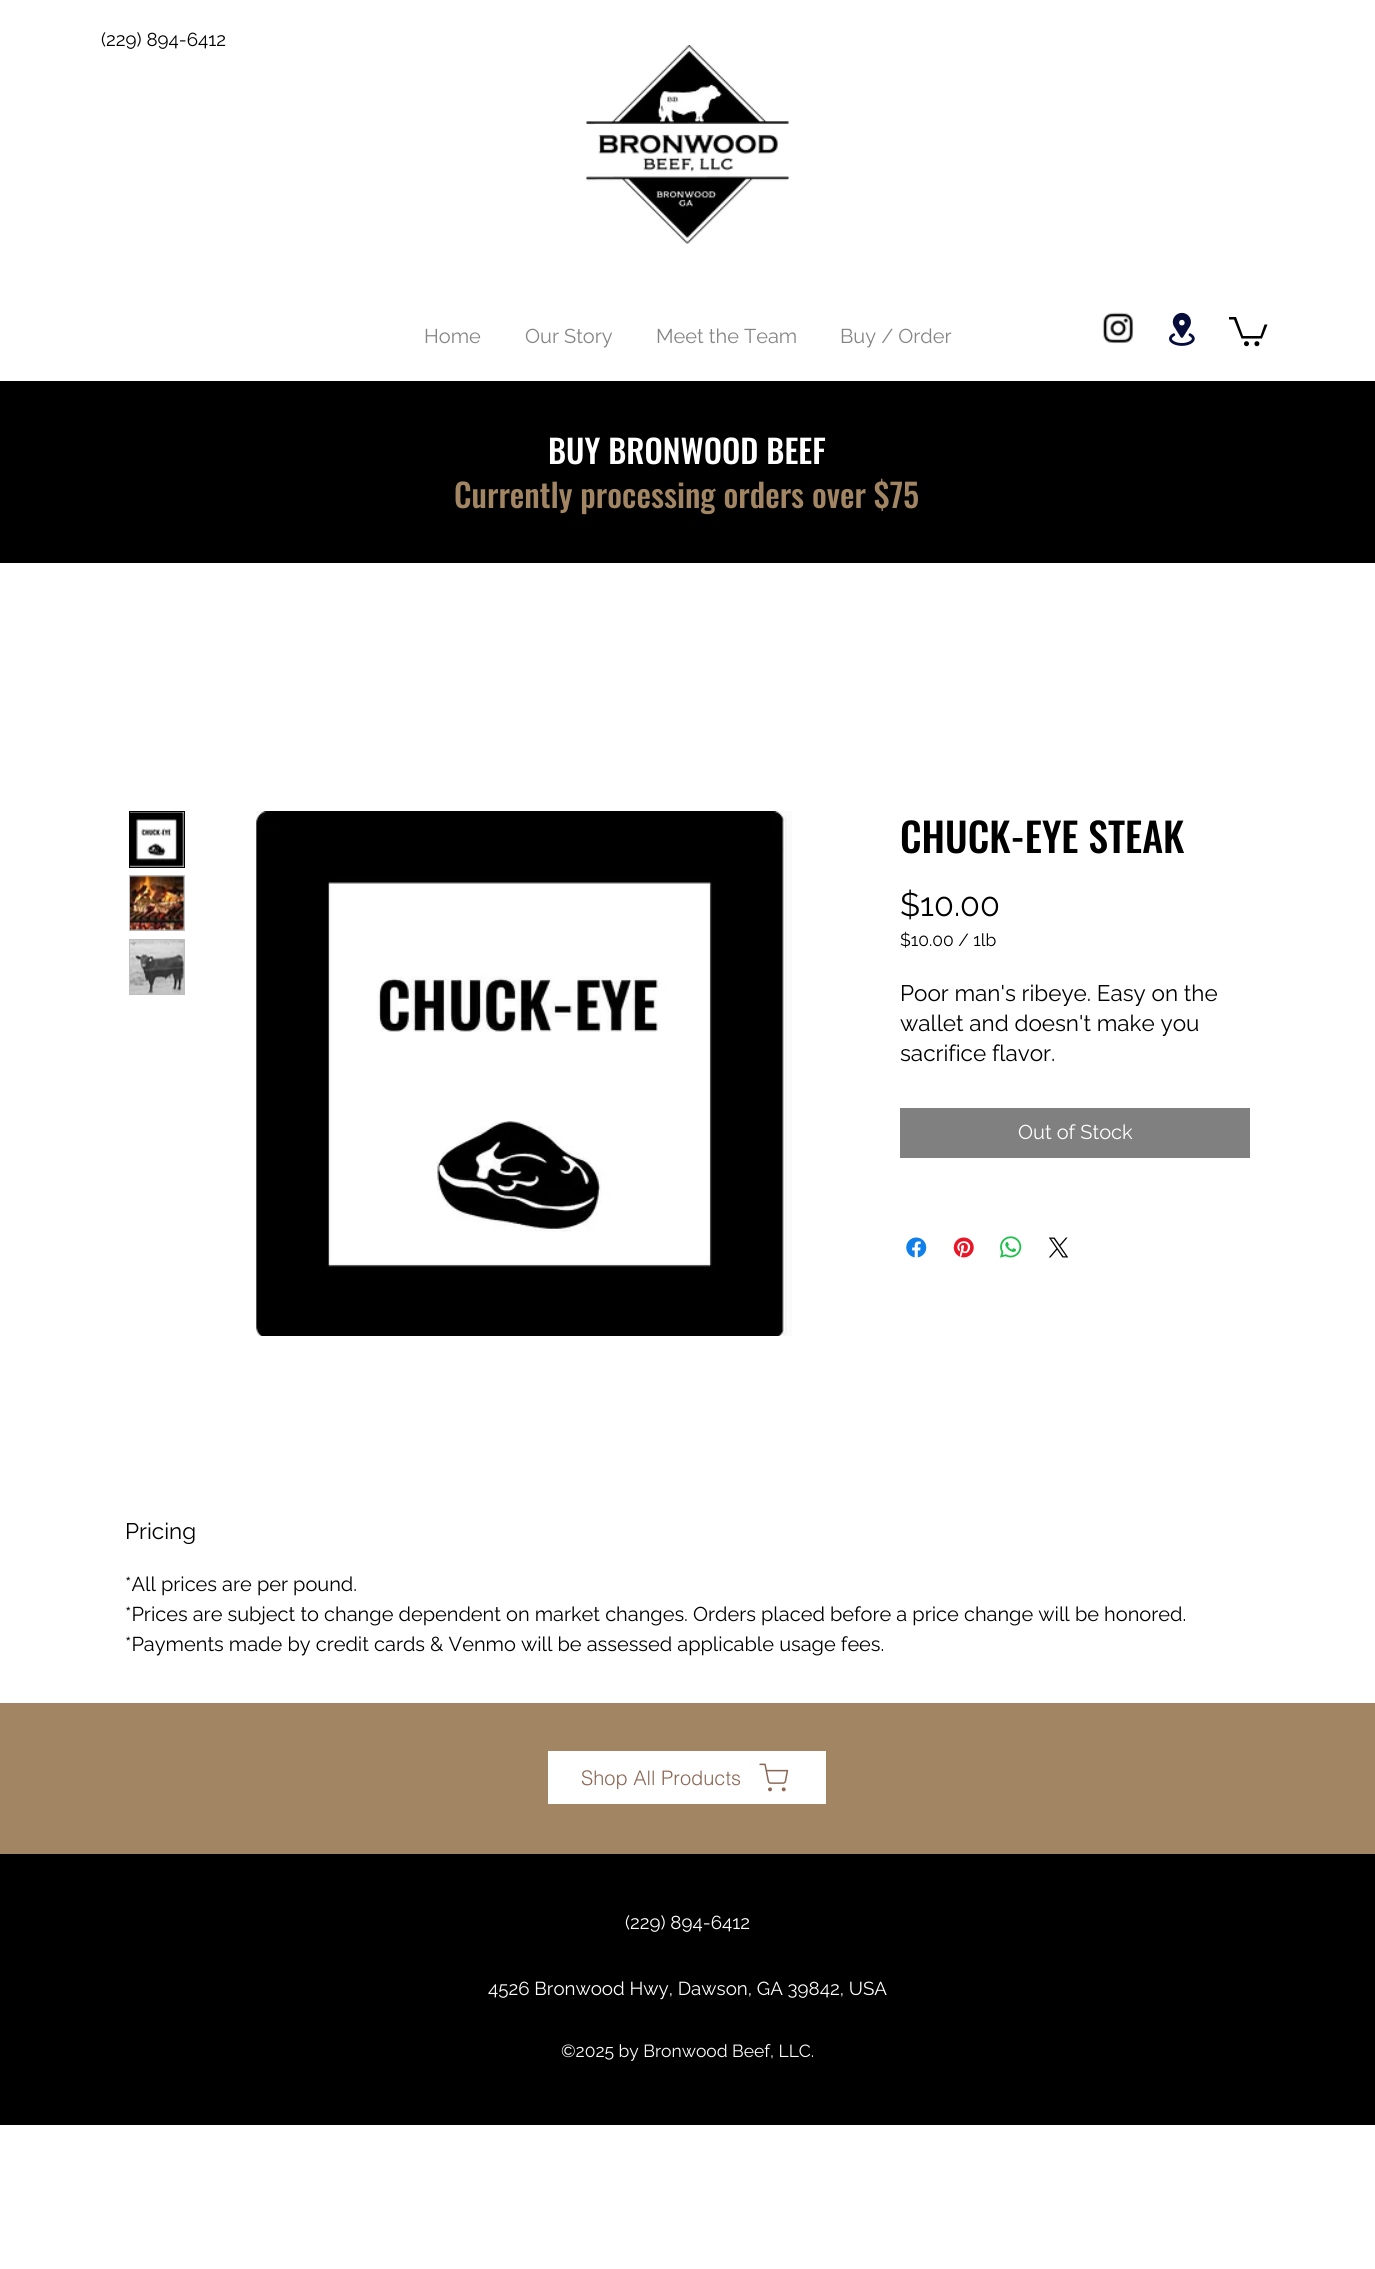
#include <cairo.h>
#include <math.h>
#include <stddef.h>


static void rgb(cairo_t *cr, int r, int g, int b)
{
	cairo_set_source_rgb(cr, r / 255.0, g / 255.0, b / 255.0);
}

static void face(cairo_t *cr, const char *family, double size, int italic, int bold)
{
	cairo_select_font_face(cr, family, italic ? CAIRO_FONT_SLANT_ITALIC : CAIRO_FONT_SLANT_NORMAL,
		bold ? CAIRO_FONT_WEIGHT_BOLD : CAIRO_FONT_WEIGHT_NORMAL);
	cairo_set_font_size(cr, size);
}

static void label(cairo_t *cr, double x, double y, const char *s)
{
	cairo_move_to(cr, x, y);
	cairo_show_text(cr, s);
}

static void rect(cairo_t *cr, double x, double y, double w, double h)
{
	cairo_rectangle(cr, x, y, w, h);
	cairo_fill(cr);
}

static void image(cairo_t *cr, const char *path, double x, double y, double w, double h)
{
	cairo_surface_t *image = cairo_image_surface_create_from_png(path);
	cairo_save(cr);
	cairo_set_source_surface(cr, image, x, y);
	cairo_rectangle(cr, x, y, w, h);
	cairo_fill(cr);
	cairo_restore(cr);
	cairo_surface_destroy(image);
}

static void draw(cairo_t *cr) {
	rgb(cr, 255, 255, 255);
	cairo_paint(cr);
	face(cr, "Raleway", 18.75, 0, 0);
	rgb(cr, 0, 0, 0);
	label(cr, 101, 46, "(229) 894-6412");
	image(cr, "image0.png", 586, 45, 203, 199);
	face(cr, "Raleway", 20, 0, 0);
	rgb(cr, 133, 133, 133);
	label(cr, 424, 343, "Home");
	label(cr, 525, 343, "Our Story");
	label(cr, 656, 343, "Meet the Team");
	label(cr, 840, 343, "Buy / Order");
	image(cr, "image1.png", 1102, 312, 32, 32);
	image(cr, "image2.png", 1169, 312, 26, 34);
	rgb(cr, 0, 0, 0);
	cairo_new_path(cr);
	cairo_move_to(cr, 1267.5, 324.5);
	cairo_line_to(cr, 1262, 338.5);
	cairo_line_to(cr, 1241.5, 338.5);
	cairo_line_to(cr, 1234, 319.5);
	cairo_line_to(cr, 1229, 319.5);
	cairo_line_to(cr, 1229, 317);
	cairo_line_to(cr, 1236, 317);
	cairo_line_to(cr, 1243, 336);
	cairo_line_to(cr, 1260.5, 336);
	cairo_line_to(cr, 1264.5, 324.5);
	cairo_fill(cr);
	cairo_arc(cr, 1256.9, 343.7, 2.5, 0, 2 * M_PI);
	cairo_fill(cr);
	cairo_arc(cr, 1246.5, 343.7, 2.5, 0, 2 * M_PI);
	cairo_fill(cr);
	rect(cr, 0, 381, 1375, 182);
	face(cr, "Oswald Medium", 32.5, 0, 0);
	rgb(cr, 255, 255, 255);
	label(cr, 548, 464, "BUY BRONWOOD BEEF");
	rgb(cr, 162, 134, 99);
	label(cr, 454, 508, "Currently processing orders over $75");
	rgb(cr, 191, 191, 191);
	cairo_rectangle(cr, 129.5, 811.5, 55, 56);
	cairo_fill_preserve(cr);
	rgb(cr, 0, 0, 0);
	cairo_set_line_width(cr, 1);
	cairo_stroke(cr);
	image(cr, "image3.png", 130, 812, 54, 55);
	rgb(cr, 191, 191, 191);
	rect(cr, 129, 875, 56, 56);
	image(cr, "image4.png", 130, 875, 54, 56);
	rect(cr, 129, 939, 56, 56);
	image(cr, "image5.png", 130, 940, 54, 54);
	image(cr, "image6.png", 256, 811, 536, 525);
	face(cr, "Oswald Medium", 40, 0, 0);
	rgb(cr, 0, 0, 0);
	label(cr, 900, 853, "CHUCK-EYE STEAK");
	face(cr, "Raleway", 32.5, 0, 0);
	label(cr, 900, 916, "$10.00");
	face(cr, "Raleway", 17.5, 0, 0);
	label(cr, 900, 946, "$10.00 / 1lb");
	face(cr, "Raleway", 22.5, 0, 0);
	label(cr, 900, 1001, "Poor man's ribeye. Easy on the");
	label(cr, 900, 1031, "wallet and doesn't make you");
	label(cr, 900, 1061, "sacrifice flavor.");
	rgb(cr, 128, 128, 128);
	rect(cr, 900, 1108, 350, 50);
	face(cr, "Raleway", 20, 0, 0);
	rgb(cr, 255, 255, 255);
	label(cr, 1018, 1139, "Out of Stock");
	image(cr, "image7.png", 906, 1237, 21, 21);
	image(cr, "image8.png", 953, 1237, 21, 21);
	image(cr, "image9.png", 1000, 1236, 22, 22);
	image(cr, "image10.png", 1048, 1237, 21, 21);
	face(cr, "Raleway", 22.5, 0, 0);
	rgb(cr, 0, 0, 0);
	label(cr, 125, 1539, "Pricing");
	face(cr, "Raleway", 20, 0, 0);
	label(cr, 125, 1591, "*All prices are per pound.");
	label(cr, 125, 1621, "*Prices are subject to change dependent on market changes. Orders placed before a price change will be honored.");
	label(cr, 125, 1651, "*Payments made by credit cards & Venmo will be assessed applicable usage fees.");
	rgb(cr, 162, 134, 99);
	rect(cr, 0, 1703, 1375, 151);
	rgb(cr, 255, 255, 255);
	rect(cr, 548, 1751, 278, 53);
	face(cr, "helvetica Light", 20, 0, 0);
	rgb(cr, 139, 103, 85);
	label(cr, 581, 1785, "Shop All Products");
	image(cr, "image11.png", 759, 1763, 30, 29);
	rgb(cr, 0, 0, 0);
	rect(cr, 0, 1854, 1375, 271);
	face(cr, "Raleway", 18.75, 0, 0);
	rgb(cr, 255, 255, 255);
	label(cr, 625, 1929, "(229) 894-6412");
	label(cr, 488, 1995, "4526 Bronwood Hwy, Dawson, GA 39842, USA");
	face(cr, "Raleway", 17.5, 0, 0);
	label(cr, 561, 2057, "©2025 by Bronwood Beef, LLC.");
}

int main(void) {
	cairo_surface_t *surface = cairo_image_surface_create(CAIRO_FORMAT_RGB24, 1375, 2269);
	cairo_t *cr = cairo_create(surface);
	cairo_font_options_t *options = cairo_font_options_create();
	cairo_font_options_set_hint_metrics(options, CAIRO_HINT_METRICS_OFF);
	cairo_font_options_set_hint_style(options, CAIRO_HINT_STYLE_NONE);
	cairo_set_font_options(cr, options);
	cairo_set_miter_limit(cr, 4);
	draw(cr);
	cairo_surface_write_to_png(surface, "render.png");
	cairo_font_options_destroy(options);
	cairo_destroy(cr);
	cairo_surface_destroy(surface);
	return 0;
}
